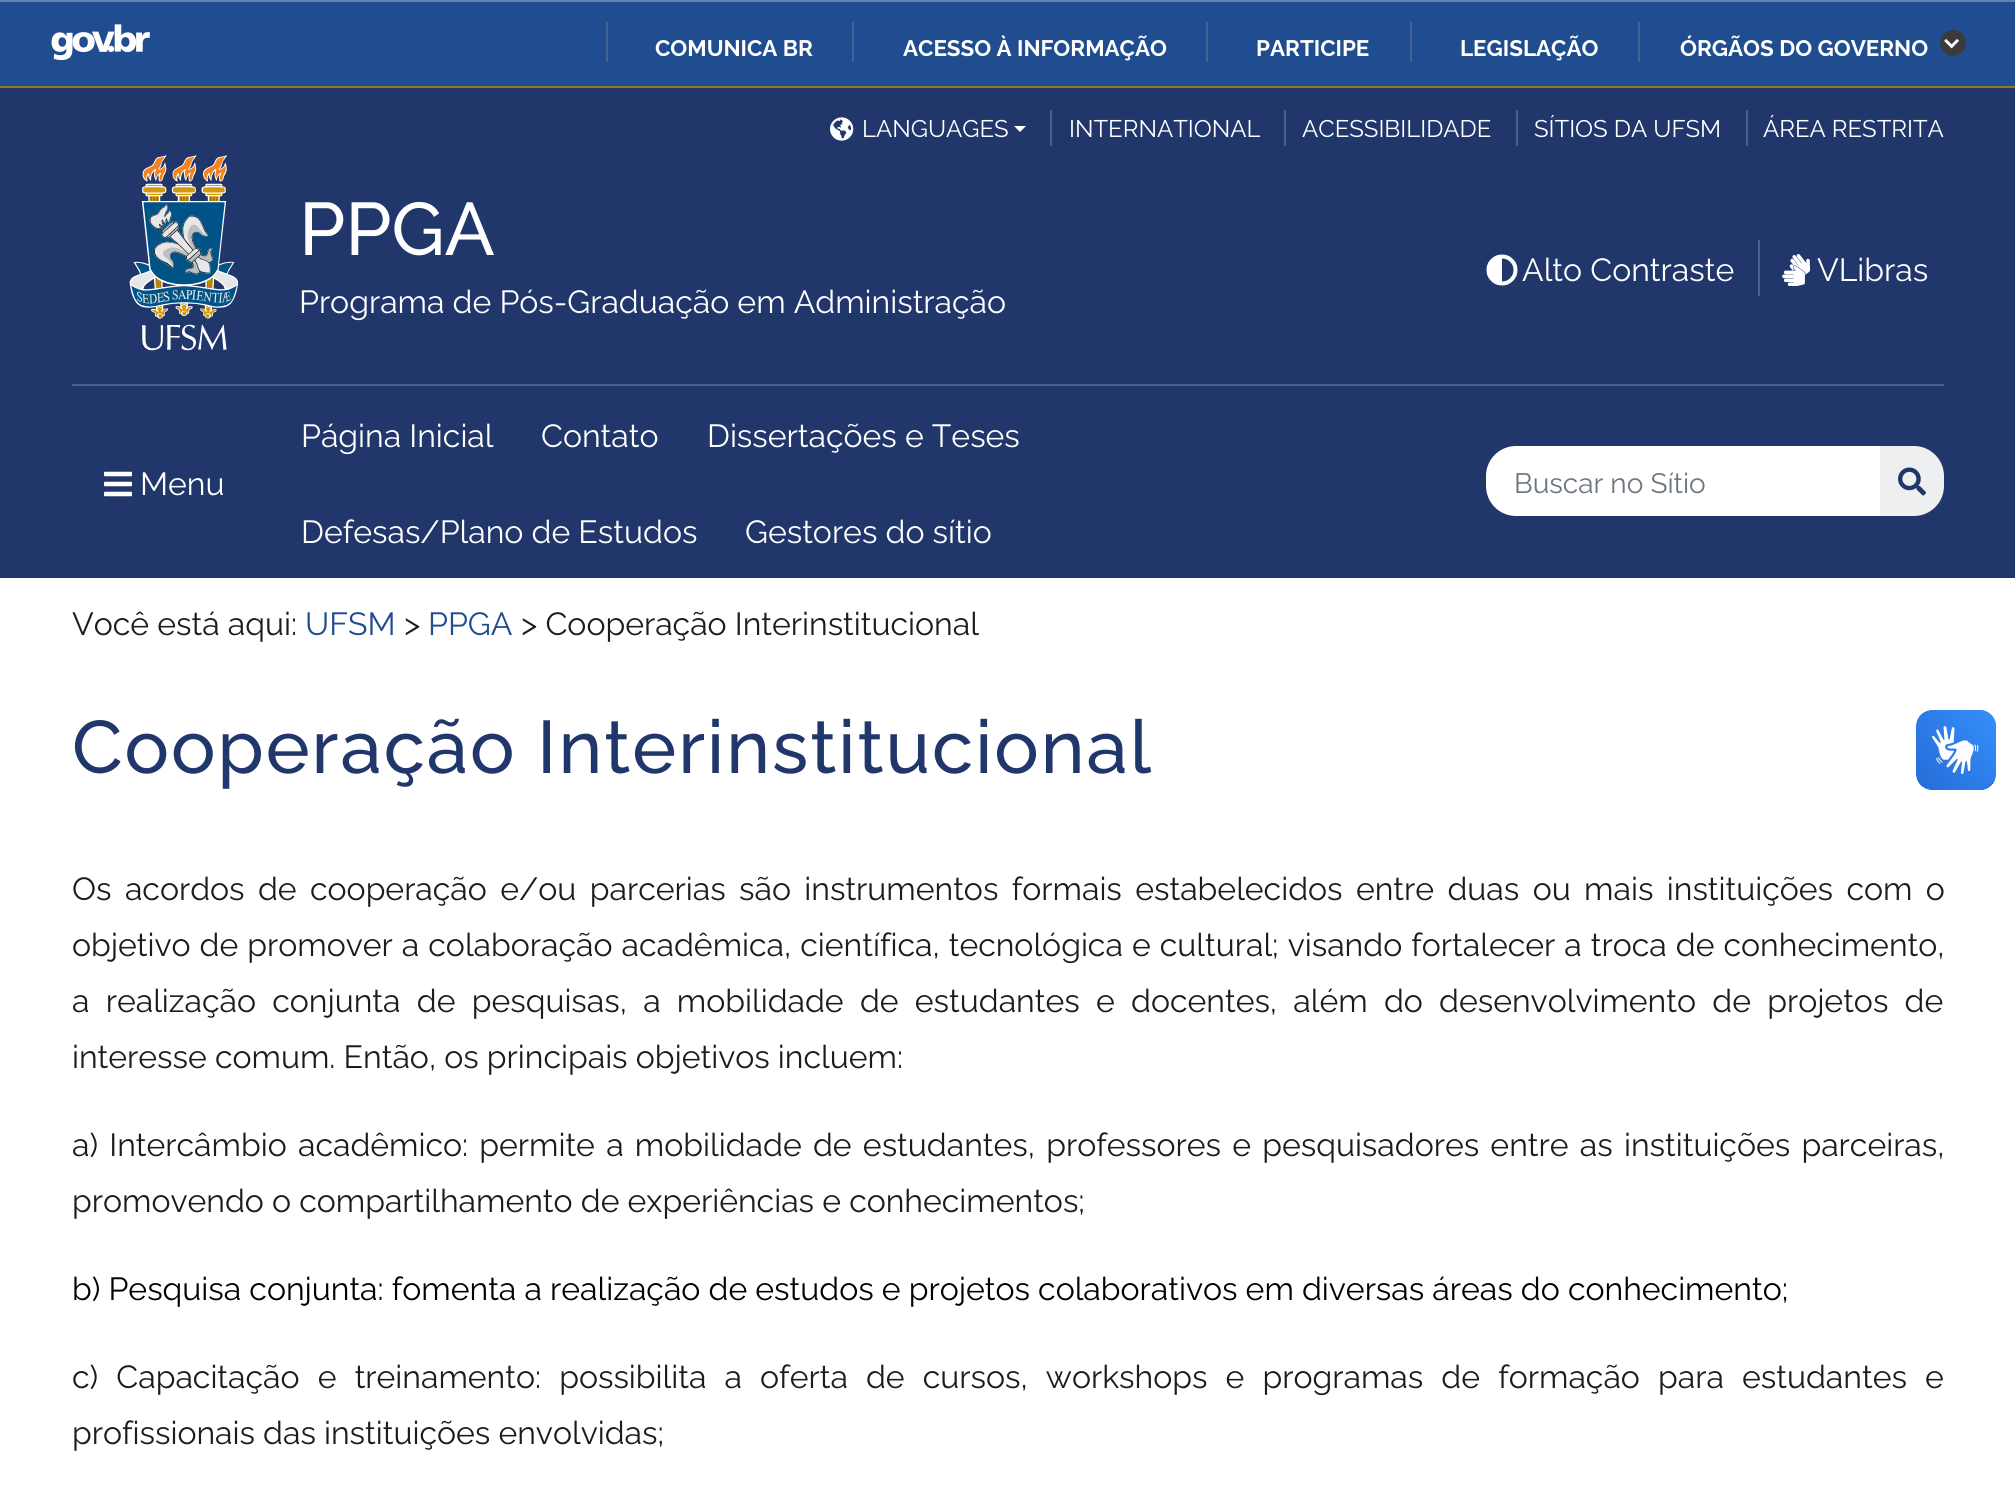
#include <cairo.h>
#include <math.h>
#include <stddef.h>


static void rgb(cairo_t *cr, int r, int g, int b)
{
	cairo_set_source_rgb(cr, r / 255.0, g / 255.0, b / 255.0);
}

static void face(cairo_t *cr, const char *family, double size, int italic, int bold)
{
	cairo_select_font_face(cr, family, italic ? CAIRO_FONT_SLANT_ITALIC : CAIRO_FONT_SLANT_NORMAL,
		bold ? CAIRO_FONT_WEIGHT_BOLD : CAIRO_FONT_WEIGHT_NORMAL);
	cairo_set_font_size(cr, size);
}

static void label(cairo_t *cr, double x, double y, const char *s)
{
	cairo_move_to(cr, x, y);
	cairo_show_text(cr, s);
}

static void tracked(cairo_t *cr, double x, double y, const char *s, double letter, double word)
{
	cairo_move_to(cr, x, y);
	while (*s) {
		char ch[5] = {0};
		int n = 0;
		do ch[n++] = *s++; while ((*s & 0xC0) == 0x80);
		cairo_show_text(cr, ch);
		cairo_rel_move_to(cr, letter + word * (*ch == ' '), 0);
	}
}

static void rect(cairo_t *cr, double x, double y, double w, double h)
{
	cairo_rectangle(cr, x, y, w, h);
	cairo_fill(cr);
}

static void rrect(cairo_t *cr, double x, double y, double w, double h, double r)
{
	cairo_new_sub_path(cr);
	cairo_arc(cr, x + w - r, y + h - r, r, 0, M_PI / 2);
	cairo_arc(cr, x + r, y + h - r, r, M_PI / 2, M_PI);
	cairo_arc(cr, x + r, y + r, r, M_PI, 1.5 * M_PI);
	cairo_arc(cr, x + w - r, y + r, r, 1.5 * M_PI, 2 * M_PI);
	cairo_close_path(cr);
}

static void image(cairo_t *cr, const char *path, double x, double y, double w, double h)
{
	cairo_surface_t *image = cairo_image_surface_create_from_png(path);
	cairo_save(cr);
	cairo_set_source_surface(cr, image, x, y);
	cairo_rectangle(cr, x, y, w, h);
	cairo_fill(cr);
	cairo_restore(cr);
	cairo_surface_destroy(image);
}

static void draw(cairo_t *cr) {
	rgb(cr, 255, 255, 255);
	cairo_paint(cr);
	rgb(cr, 32, 76, 144);
	rect(cr, 0, 2, 2015, 84);
	rgb(cr, 99, 130, 177);
	rect(cr, 0, 0, 2015, 2);
	image(cr, "image0.png", 51, 24, 99, 36);
	rgb(cr, 68, 99, 146);
	rect(cr, 606, 22, 2, 40);
	face(cr, "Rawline", 22.4, 0, 1);
	rgb(cr, 255, 255, 255);
	label(cr, 655, 56, "COMUNICA BR");
	rgb(cr, 68, 99, 146);
	rect(cr, 852, 22, 2, 40);
	rgb(cr, 255, 255, 255);
	label(cr, 903, 56, "ACESSO À INFORMAÇÃO");
	rgb(cr, 68, 99, 146);
	rect(cr, 1206, 22, 2, 40);
	rgb(cr, 255, 255, 255);
	label(cr, 1256, 56, "PARTICIPE");
	rgb(cr, 68, 99, 146);
	rect(cr, 1410, 22, 2, 40);
	rgb(cr, 255, 255, 255);
	label(cr, 1460, 56, "LEGISLAÇÃO");
	rgb(cr, 68, 99, 146);
	rect(cr, 1638, 22, 2, 40);
	rgb(cr, 255, 255, 255);
	label(cr, 1680, 56, "ÓRGÃOS DO GOVERNO");
	rgb(cr, 59, 59, 59);
	cairo_new_path(cr);
	cairo_arc(cr, 1953, 43, 13, 0, 2 * M_PI);
	cairo_fill(cr);
	image(cr, "image1.png", 1944, 39, 15, 10);
	rgb(cr, 33, 55, 107);
	rect(cr, 0, 88, 2015, 490);
	rgb(cr, 153, 117, 32);
	rect(cr, 0, 86, 2015, 2);
	image(cr, "image2.png", 830, 117, 24, 24);
	face(cr, "Rawline", 24, 0, 0);
	rgb(cr, 255, 255, 255);
	label(cr, 862, 137, "LANGUAGES");
	cairo_new_path(cr);
	cairo_move_to(cr, 1014, 126);
	cairo_line_to(cr, 1026, 126);
	cairo_line_to(cr, 1020, 132);
	cairo_close_path(cr);
	cairo_fill(cr);
	rgb(cr, 77, 95, 137);
	rect(cr, 1050, 110, 2, 36);
	rgb(cr, 255, 255, 255);
	label(cr, 1069, 137, "INTERNATIONAL");
	rgb(cr, 77, 95, 137);
	rect(cr, 1284, 110, 2, 36);
	rgb(cr, 255, 255, 255);
	label(cr, 1302, 137, "ACESSIBILIDADE");
	rgb(cr, 77, 95, 137);
	rect(cr, 1516, 110, 2, 36);
	rgb(cr, 255, 255, 255);
	label(cr, 1534, 137, "SÍTIOS DA UFSM");
	rgb(cr, 77, 95, 137);
	rect(cr, 1746, 110, 2, 36);
	rgb(cr, 255, 255, 255);
	label(cr, 1763, 137, "ÁREA RESTRITA");
	rgb(cr, 77, 95, 137);
	rect(cr, 72, 384, 1872, 2);
	image(cr, "image3.png", 129, 155, 110, 196);
	face(cr, "Rawline Medium", 74.25, 0, 0);
	rgb(cr, 255, 255, 255);
	label(cr, 299, 255, "PPGA");
	face(cr, "Rawline", 32, 0, 0);
	label(cr, 299, 313, "Programa de Pós-Graduação em Administração");
	image(cr, "image4.png", 1486, 254, 32, 32);
	label(cr, 1522, 281, "Alto Contraste");
	rgb(cr, 77, 95, 137);
	rect(cr, 1758, 240, 2, 56);
	image(cr, "image5.png", 1782, 254, 29, 32);
	rgb(cr, 255, 255, 255);
	label(cr, 1817, 281, "VLibras");
	image(cr, "image6.png", 104, 471, 28, 26);
	label(cr, 140, 495, "Menu");
	label(cr, 301, 447, "Página Inicial");
	label(cr, 541, 447, "Contato");
	label(cr, 707, 447, "Dissertações e Teses");
	label(cr, 301, 543, "Defesas/Plano de Estudos");
	label(cr, 745, 543, "Gestores do sítio");
	cairo_save(cr);
	rrect(cr, 1486, 446, 458, 70, 30);
	cairo_clip(cr);
	cairo_new_path(cr);
	cairo_move_to(cr, 1492, 446);
	cairo_line_to(cr, 1882, 446);
	cairo_line_to(cr, 1882, 516);
	cairo_line_to(cr, 1492, 516);
	cairo_curve_to(cr, 1487.5, 516, 1484, 512.5, 1484, 508);
	cairo_line_to(cr, 1484, 454);
	cairo_curve_to(cr, 1484, 449.5, 1487.5, 446, 1492, 446);
	cairo_close_path(cr);
	cairo_fill(cr);
	cairo_restore(cr);
	face(cr, "Rawline", 28, 0, 0);
	rgb(cr, 108, 117, 125);
	label(cr, 1514, 493, "Buscar no Sítio");
	rgb(cr, 238, 239, 241);
	cairo_new_path(cr);
	cairo_move_to(cr, 1880, 446);
	cairo_line_to(cr, 1914, 446);
	cairo_curve_to(cr, 1930.5, 446, 1944, 459.5, 1944, 476);
	cairo_line_to(cr, 1944, 486);
	cairo_curve_to(cr, 1944, 502.5, 1930.5, 516, 1914, 516);
	cairo_line_to(cr, 1880, 516);
	cairo_close_path(cr);
	cairo_fill(cr);
	image(cr, "image7.png", 1898, 467, 28, 29);
	face(cr, "Rawline", 32, 0, 0);
	rgb(cr, 28, 28, 28);
	label(cr, 72, 635, "Você está aqui:");
	rgb(cr, 32, 76, 144);
	label(cr, 305, 635, "UFSM");
	rgb(cr, 28, 28, 28);
	label(cr, 404, 635, ">");
	rgb(cr, 32, 76, 144);
	label(cr, 428, 635, "PPGA");
	rgb(cr, 28, 28, 28);
	label(cr, 521, 635, "> Cooperação Interinstitucional");
	face(cr, "Rawline Medium", 74.25, 0, 0);
	rgb(cr, 33, 55, 107);
	tracked(cr, 72, 773, "Cooperação Interinstitucional", 2, 0);
	face(cr, "Rawline", 32, 0, 0);
	rgb(cr, 28, 28, 28);
	tracked(cr, 72, 900, "Os acordos de cooperação e/ou parcerias são instrumentos formais estabelecidos entre duas ou mais instituições com o", 0, 5.25);
	tracked(cr, 72, 956, "objetivo de promover a colaboração acadêmica, científica, tecnológica e cultural; visando fortalecer a troca de conhecimento,", 0, 0.9);
	tracked(cr, 72, 1012, "a realização conjunta de pesquisas, a mobilidade de estudantes e docentes, além do desenvolvimento de projetos de", 0, 8.1);
	label(cr, 72, 1068, "interesse comum. Então, os principais objetivos incluem:");
	tracked(cr, 72, 1156, "a) Intercâmbio acadêmico: permite a mobilidade de estudantes, professores e pesquisadores entre as instituições parceiras,", 0, 3.1);
	label(cr, 72, 1212, "promovendo o compartilhamento de experiências e conhecimentos;");
	rgb(cr, 0, 0, 0);
	label(cr, 72, 1300, "b) Pesquisa conjunta: fomenta a realização de estudos e projetos colaborativos em diversas áreas do conhecimento;");
	rgb(cr, 28, 28, 28);
	tracked(cr, 72, 1388, "c) Capacitação e treinamento: possibilita a oferta de cursos, workshops e programas de formação para estudantes e", 0, 10);
	label(cr, 72, 1444, "profissionais das instituições envolvidas;");
	image(cr, "image8.png", 1916, 710, 80, 80);
	image(cr, "image9.png", 1916, 710, 80, 80);
}

int main(void) {
	cairo_surface_t *surface = cairo_image_surface_create(CAIRO_FORMAT_RGB24, 2015, 1499);
	cairo_t *cr = cairo_create(surface);
	cairo_font_options_t *options = cairo_font_options_create();
	cairo_font_options_set_hint_metrics(options, CAIRO_HINT_METRICS_OFF);
	cairo_font_options_set_hint_style(options, CAIRO_HINT_STYLE_NONE);
	cairo_set_font_options(cr, options);
	cairo_set_miter_limit(cr, 4);
	draw(cr);
	cairo_surface_write_to_png(surface, "render.png");
	cairo_font_options_destroy(options);
	cairo_destroy(cr);
	cairo_surface_destroy(surface);
	return 0;
}
